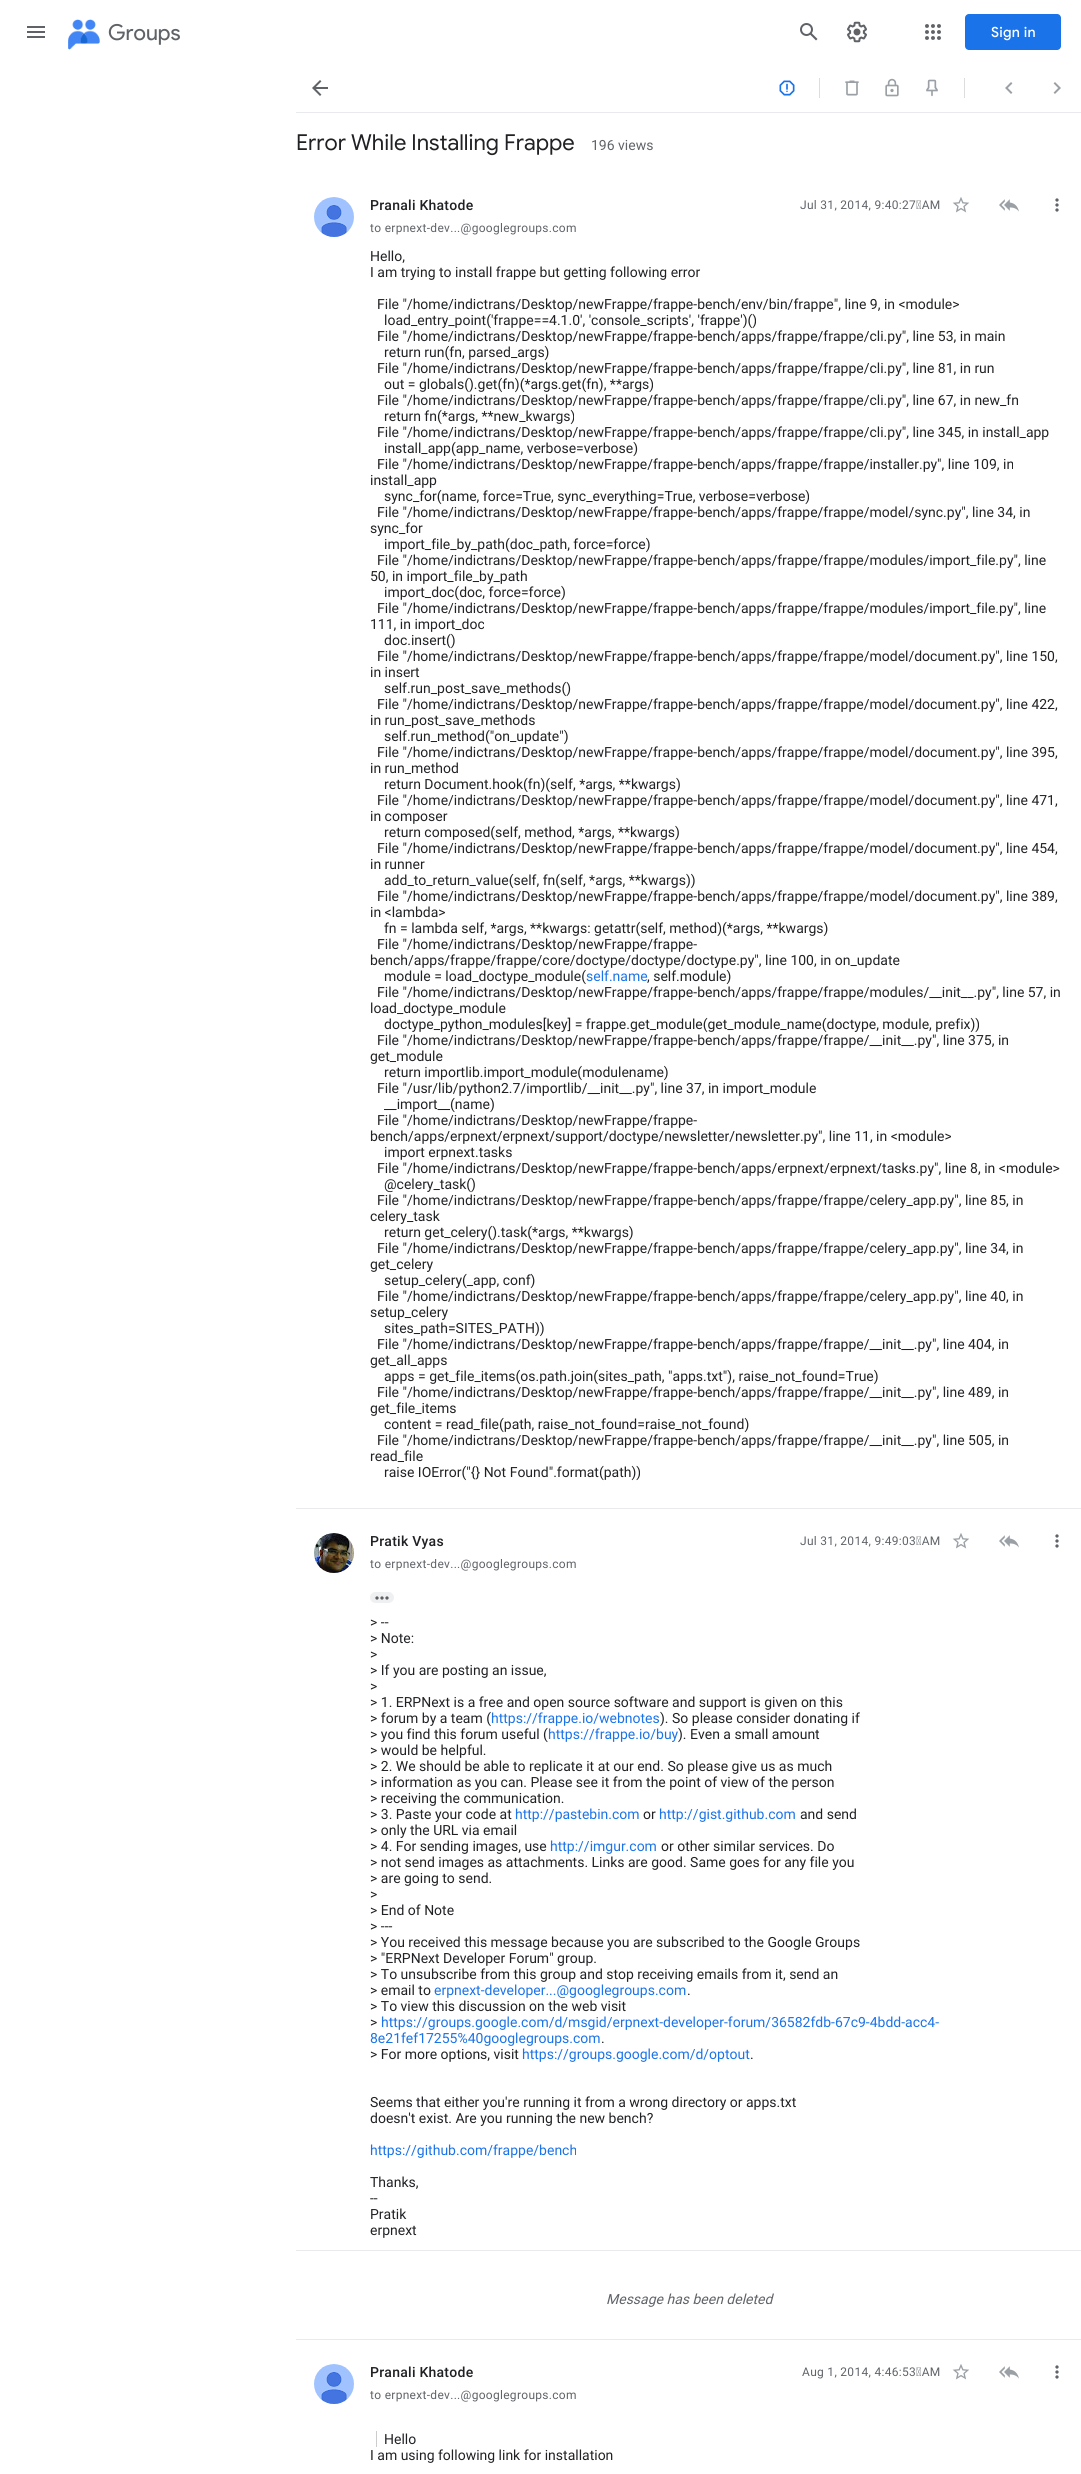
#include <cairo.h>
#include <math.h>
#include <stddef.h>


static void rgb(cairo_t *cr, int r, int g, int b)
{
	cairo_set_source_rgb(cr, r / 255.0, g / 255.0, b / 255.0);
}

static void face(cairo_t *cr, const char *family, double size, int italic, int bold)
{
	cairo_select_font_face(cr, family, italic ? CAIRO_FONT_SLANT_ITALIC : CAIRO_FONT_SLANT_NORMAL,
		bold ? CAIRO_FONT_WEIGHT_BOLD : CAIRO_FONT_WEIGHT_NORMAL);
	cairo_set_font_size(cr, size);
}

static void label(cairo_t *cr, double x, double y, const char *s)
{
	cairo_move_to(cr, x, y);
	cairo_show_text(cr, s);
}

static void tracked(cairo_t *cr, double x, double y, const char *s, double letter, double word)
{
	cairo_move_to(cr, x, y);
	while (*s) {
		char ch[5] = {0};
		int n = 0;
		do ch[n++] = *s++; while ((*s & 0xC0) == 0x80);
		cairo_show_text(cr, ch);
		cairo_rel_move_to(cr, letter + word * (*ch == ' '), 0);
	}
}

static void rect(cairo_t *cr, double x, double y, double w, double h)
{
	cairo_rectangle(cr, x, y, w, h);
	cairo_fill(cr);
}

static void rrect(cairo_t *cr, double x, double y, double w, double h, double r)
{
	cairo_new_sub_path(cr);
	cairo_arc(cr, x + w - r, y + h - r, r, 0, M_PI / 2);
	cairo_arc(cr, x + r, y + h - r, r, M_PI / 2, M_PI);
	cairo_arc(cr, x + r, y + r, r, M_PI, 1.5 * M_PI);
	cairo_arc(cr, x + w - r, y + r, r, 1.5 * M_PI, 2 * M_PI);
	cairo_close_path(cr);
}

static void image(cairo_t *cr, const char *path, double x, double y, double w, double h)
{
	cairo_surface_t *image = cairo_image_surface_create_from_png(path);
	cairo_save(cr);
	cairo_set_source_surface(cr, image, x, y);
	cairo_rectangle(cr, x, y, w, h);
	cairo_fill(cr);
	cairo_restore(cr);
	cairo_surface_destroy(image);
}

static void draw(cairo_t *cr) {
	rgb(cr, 255, 255, 255);
	cairo_paint(cr);
	image(cr, "image0.png", 27, 26, 18, 12);
	image(cr, "image1.png", 68, 19, 32, 31);
	face(cr, "Product Sans", 22, 0, 0);
	rgb(cr, 95, 99, 104);
	label(cr, 108, 40, "Groups");
	image(cr, "image2.png", 800, 23, 18, 18);
	image(cr, "image3.png", 847, 21, 20, 22);
	image(cr, "image4.png", 925, 24, 16, 16);
	rgb(cr, 26, 115, 232);
	rrect(cr, 965, 14, 96, 36, 4);
	cairo_fill(cr);
	face(cr, "Google Sans Medium", 14, 0, 0);
	rgb(cr, 255, 255, 255);
	tracked(cr, 991, 37, "Sign in", 0.25, 0);
	rgb(cr, 232, 234, 237);
	rect(cr, 296, 112, 785, 1);
	image(cr, "image5.png", 312, 80, 16, 16);
	image(cr, "image6.png", 779, 80, 16, 16);
	rgb(cr, 221, 221, 221);
	rect(cr, 819, 78, 1, 20);
	image(cr, "image7.png", 845, 80, 14, 16);
	image(cr, "image8.png", 885, 78, 14, 19);
	image(cr, "image9.png", 926, 79, 12, 18);
	rect(cr, 964, 78, 1, 20);
	image(cr, "image10.png", 1005, 82, 8, 12);
	image(cr, "image11.png", 1053, 82, 8, 12);
	face(cr, "Google Sans", 22, 0, 0);
	rgb(cr, 32, 33, 36);
	label(cr, 296, 150, "Error While Installing Frappe");
	face(cr, "Roboto", 14, 0, 0);
	rgb(cr, 95, 99, 104);
	label(cr, 591, 150, "196 views");
	rgb(cr, 232, 234, 237);
	rect(cr, 296, 1508, 785, 1);
	image(cr, "image12.png", 314, 197, 40, 40);
	face(cr, "Roboto Medium", 14, 0, 0);
	rgb(cr, 32, 33, 36);
	tracked(cr, 370, 210, "Pranali Khatode", 0.25, 0);
	face(cr, "Roboto", 12, 0, 0);
	rgb(cr, 95, 99, 104);
	tracked(cr, 800, 209, "Jul 31, 2014, 9:40:27 AM", 0.3, 0);
	image(cr, "image13.png", 952, 197, 18, 16);
	image(cr, "image14.png", 999, 199, 20, 13);
	image(cr, "image15.png", 1055, 198, 4, 14);
	tracked(cr, 370, 232, "to erpnext-dev...@googlegroups.com", 0.3, 0);
	face(cr, "Roboto", 14, 0, 0);
	rgb(cr, 32, 33, 36);
	label(cr, 370, 261, "Hello,");
	label(cr, 370, 277, "I am trying to install frappe but getting following error");
	label(cr, 377, 309, "File \"/home/indictrans/Desktop/newFrappe/frappe-bench/env/bin/frappe\", line 9, in <module>");
	label(cr, 384, 325, "load_entry_point('frappe==4.1.0', 'console_scripts', 'frappe')()");
	label(cr, 377, 341, "File \"/home/indictrans/Desktop/newFrappe/frappe-bench/apps/frappe/frappe/cli.py\", line 53, in main");
	label(cr, 384, 357, "return run(fn, parsed_args)");
	label(cr, 377, 373, "File \"/home/indictrans/Desktop/newFrappe/frappe-bench/apps/frappe/frappe/cli.py\", line 81, in run");
	label(cr, 384, 389, "out = globals().get(fn)(*args.get(fn), **args)");
	label(cr, 377, 405, "File \"/home/indictrans/Desktop/newFrappe/frappe-bench/apps/frappe/frappe/cli.py\", line 67, in new_fn");
	label(cr, 384, 421, "return fn(*args, **new_kwargs)");
	label(cr, 377, 437, "File \"/home/indictrans/Desktop/newFrappe/frappe-bench/apps/frappe/frappe/cli.py\", line 345, in install_app");
	label(cr, 384, 453, "install_app(app_name, verbose=verbose)");
	label(cr, 377, 469, "File \"/home/indictrans/Desktop/newFrappe/frappe-bench/apps/frappe/frappe/installer.py\", line 109, in");
	label(cr, 370, 485, "install_app");
	label(cr, 384, 501, "sync_for(name, force=True, sync_everything=True, verbose=verbose)");
	label(cr, 377, 517, "File \"/home/indictrans/Desktop/newFrappe/frappe-bench/apps/frappe/frappe/model/sync.py\", line 34, in");
	label(cr, 370, 533, "sync_for");
	label(cr, 384, 549, "import_file_by_path(doc_path, force=force)");
	label(cr, 377, 565, "File \"/home/indictrans/Desktop/newFrappe/frappe-bench/apps/frappe/frappe/modules/import_file.py\", line");
	label(cr, 370, 581, "50, in import_file_by_path");
	label(cr, 384, 597, "import_doc(doc, force=force)");
	label(cr, 377, 613, "File \"/home/indictrans/Desktop/newFrappe/frappe-bench/apps/frappe/frappe/modules/import_file.py\", line");
	label(cr, 370, 629, "111, in import_doc");
	label(cr, 384, 645, "doc.insert()");
	label(cr, 377, 661, "File \"/home/indictrans/Desktop/newFrappe/frappe-bench/apps/frappe/frappe/model/document.py\", line 150,");
	label(cr, 370, 677, "in insert");
	label(cr, 384, 693, "self.run_post_save_methods()");
	label(cr, 377, 709, "File \"/home/indictrans/Desktop/newFrappe/frappe-bench/apps/frappe/frappe/model/document.py\", line 422,");
	label(cr, 370, 725, "in run_post_save_methods");
	label(cr, 384, 741, "self.run_method(\"on_update\")");
	label(cr, 377, 757, "File \"/home/indictrans/Desktop/newFrappe/frappe-bench/apps/frappe/frappe/model/document.py\", line 395,");
	label(cr, 370, 773, "in run_method");
	label(cr, 384, 789, "return Document.hook(fn)(self, *args, **kwargs)");
	label(cr, 377, 805, "File \"/home/indictrans/Desktop/newFrappe/frappe-bench/apps/frappe/frappe/model/document.py\", line 471,");
	label(cr, 370, 821, "in composer");
	label(cr, 384, 837, "return composed(self, method, *args, **kwargs)");
	label(cr, 377, 853, "File \"/home/indictrans/Desktop/newFrappe/frappe-bench/apps/frappe/frappe/model/document.py\", line 454,");
	label(cr, 370, 869, "in runner");
	label(cr, 384, 885, "add_to_return_value(self, fn(self, *args, **kwargs))");
	label(cr, 377, 901, "File \"/home/indictrans/Desktop/newFrappe/frappe-bench/apps/frappe/frappe/model/document.py\", line 389,");
	label(cr, 370, 917, "in <lambda>");
	label(cr, 384, 933, "fn = lambda self, *args, **kwargs: getattr(self, method)(*args, **kwargs)");
	label(cr, 377, 949, "File \"/home/indictrans/Desktop/newFrappe/frappe-");
	label(cr, 370, 965, "bench/apps/frappe/frappe/core/doctype/doctype/doctype.py\", line 100, in on_update");
	label(cr, 384, 981, "module = load_doctype_module(");
	rgb(cr, 26, 115, 232);
	label(cr, 586, 981, "self.name");
	rgb(cr, 32, 33, 36);
	label(cr, 647, 981, ", self.module)");
	label(cr, 377, 997, "File \"/home/indictrans/Desktop/newFrappe/frappe-bench/apps/frappe/frappe/modules/__init__.py\", line 57, in");
	label(cr, 370, 1013, "load_doctype_module");
	label(cr, 384, 1029, "doctype_python_modules[key] = frappe.get_module(get_module_name(doctype, module, prefix))");
	label(cr, 377, 1045, "File \"/home/indictrans/Desktop/newFrappe/frappe-bench/apps/frappe/frappe/__init__.py\", line 375, in");
	label(cr, 370, 1061, "get_module");
	label(cr, 384, 1077, "return importlib.import_module(modulename)");
	label(cr, 377, 1093, "File \"/usr/lib/python2.7/importlib/__init__.py\", line 37, in import_module");
	label(cr, 384, 1109, "__import__(name)");
	label(cr, 377, 1125, "File \"/home/indictrans/Desktop/newFrappe/frappe-");
	label(cr, 370, 1141, "bench/apps/erpnext/erpnext/support/doctype/newsletter/newsletter.py\", line 11, in <module>");
	label(cr, 384, 1157, "import erpnext.tasks");
	label(cr, 377, 1173, "File \"/home/indictrans/Desktop/newFrappe/frappe-bench/apps/erpnext/erpnext/tasks.py\", line 8, in <module>");
	label(cr, 384, 1189, "@celery_task()");
	label(cr, 377, 1205, "File \"/home/indictrans/Desktop/newFrappe/frappe-bench/apps/frappe/frappe/celery_app.py\", line 85, in");
	label(cr, 370, 1221, "celery_task");
	label(cr, 384, 1237, "return get_celery().task(*args, **kwargs)");
	label(cr, 377, 1253, "File \"/home/indictrans/Desktop/newFrappe/frappe-bench/apps/frappe/frappe/celery_app.py\", line 34, in");
	label(cr, 370, 1269, "get_celery");
	label(cr, 384, 1285, "setup_celery(_app, conf)");
	label(cr, 377, 1301, "File \"/home/indictrans/Desktop/newFrappe/frappe-bench/apps/frappe/frappe/celery_app.py\", line 40, in");
	label(cr, 370, 1317, "setup_celery");
	label(cr, 384, 1333, "sites_path=SITES_PATH))");
	label(cr, 377, 1349, "File \"/home/indictrans/Desktop/newFrappe/frappe-bench/apps/frappe/frappe/__init__.py\", line 404, in");
	label(cr, 370, 1365, "get_all_apps");
	label(cr, 384, 1381, "apps = get_file_items(os.path.join(sites_path, \"apps.txt\"), raise_not_found=True)");
	label(cr, 377, 1397, "File \"/home/indictrans/Desktop/newFrappe/frappe-bench/apps/frappe/frappe/__init__.py\", line 489, in");
	label(cr, 370, 1413, "get_file_items");
	label(cr, 384, 1429, "content = read_file(path, raise_not_found=raise_not_found)");
	label(cr, 377, 1445, "File \"/home/indictrans/Desktop/newFrappe/frappe-bench/apps/frappe/frappe/__init__.py\", line 505, in");
	label(cr, 370, 1461, "read_file");
	label(cr, 384, 1477, "raise IOError(\"{} Not Found\".format(path))");
	rgb(cr, 232, 234, 237);
	rect(cr, 296, 2250, 785, 1);
	image(cr, "image16.png", 314, 1533, 40, 40);
	face(cr, "Roboto Medium", 14, 0, 0);
	rgb(cr, 32, 33, 36);
	tracked(cr, 370, 1546, "Pratik Vyas", 0.25, 0);
	face(cr, "Roboto", 12, 0, 0);
	rgb(cr, 95, 99, 104);
	tracked(cr, 800, 1545, "Jul 31, 2014, 9:49:03 AM", 0.3, 0);
	image(cr, "image13.png", 952, 1533, 18, 16);
	image(cr, "image14.png", 999, 1535, 20, 13);
	image(cr, "image15.png", 1055, 1534, 4, 14);
	tracked(cr, 370, 1568, "to erpnext-dev...@googlegroups.com", 0.3, 0);
	rgb(cr, 239, 240, 242);
	rrect(cr, 370, 1592, 24, 11, 5.5);
	cairo_fill(cr);
	image(cr, "image17.png", 375, 1596, 14, 4);
	face(cr, "Roboto", 14, 0, 0);
	rgb(cr, 32, 33, 36);
	label(cr, 370, 1627, "> --");
	label(cr, 370, 1643, "> Note:");
	label(cr, 370, 1659, ">");
	label(cr, 370, 1675, "> If you are posting an issue,");
	label(cr, 370, 1691, ">");
	label(cr, 370, 1707, "> 1. ERPNext is a free and open source software and support is given on this");
	label(cr, 370, 1723, "> forum by a team (");
	rgb(cr, 26, 115, 232);
	label(cr, 491, 1723, "https://frappe.io/webnotes");
	rgb(cr, 32, 33, 36);
	label(cr, 660, 1723, "). So please consider donating if");
	label(cr, 370, 1739, "> you find this forum useful (");
	rgb(cr, 26, 115, 232);
	label(cr, 548, 1739, "https://frappe.io/buy");
	rgb(cr, 32, 33, 36);
	label(cr, 678, 1739, "). Even a small amount");
	label(cr, 370, 1755, "> would be helpful.");
	label(cr, 370, 1771, "> 2. We should be able to replicate it at our end. So please give us as much");
	label(cr, 370, 1787, "> information as you can. Please see it from the point of view of the person");
	label(cr, 370, 1803, "> receiving the communication.");
	label(cr, 370, 1819, "> 3. Paste your code at");
	rgb(cr, 26, 115, 232);
	label(cr, 515, 1819, "http://pastebin.com");
	rgb(cr, 32, 33, 36);
	label(cr, 643, 1819, "or");
	rgb(cr, 26, 115, 232);
	label(cr, 659, 1819, "http://gist.github.com");
	rgb(cr, 32, 33, 36);
	label(cr, 800, 1819, "and send");
	label(cr, 370, 1835, "> only the URL via email");
	label(cr, 370, 1851, "> 4. For sending images, use");
	rgb(cr, 26, 115, 232);
	label(cr, 550, 1851, "http://imgur.com");
	rgb(cr, 32, 33, 36);
	label(cr, 661, 1851, "or other similar services. Do");
	label(cr, 370, 1867, "> not send images as attachments. Links are good. Same goes for any file you");
	label(cr, 370, 1883, "> are going to send.");
	label(cr, 370, 1899, ">");
	label(cr, 370, 1915, "> End of Note");
	label(cr, 370, 1931, "> ---");
	label(cr, 370, 1947, "> You received this message because you are subscribed to the Google Groups");
	label(cr, 370, 1963, "> \"ERPNext Developer Forum\" group.");
	label(cr, 370, 1979, "> To unsubscribe from this group and stop receiving emails from it, send an");
	label(cr, 370, 1995, "> email to");
	rgb(cr, 26, 115, 232);
	label(cr, 434, 1995, "erpnext-developer...@googlegroups.com");
	rgb(cr, 32, 33, 36);
	label(cr, 687, 1995, ".");
	label(cr, 370, 2011, "> To view this discussion on the web visit");
	label(cr, 370, 2027, ">");
	rgb(cr, 26, 115, 232);
	label(cr, 381, 2027, "https://groups.google.com/d/msgid/erpnext-developer-forum/36582fdb-67c9-4bdd-acc4-");
	label(cr, 370, 2043, "8e21fef17255%40googlegroups.com");
	rgb(cr, 32, 33, 36);
	label(cr, 601, 2043, ".");
	label(cr, 370, 2059, "> For more options, visit");
	rgb(cr, 26, 115, 232);
	label(cr, 522, 2059, "https://groups.google.com/d/optout");
	rgb(cr, 32, 33, 36);
	label(cr, 750, 2059, ".");
	label(cr, 370, 2107, "Seems that either you're running it from a wrong directory or apps.txt");
	label(cr, 370, 2123, "doesn't exist. Are you running the new bench?");
	rgb(cr, 26, 115, 232);
	label(cr, 370, 2155, "https://github.com/frappe/bench");
	rgb(cr, 32, 33, 36);
	label(cr, 370, 2187, "Thanks,");
	label(cr, 370, 2203, "--");
	label(cr, 370, 2219, "Pratik");
	label(cr, 370, 2235, "erpnext");
	rgb(cr, 232, 234, 237);
	rect(cr, 296, 2339, 785, 1);
	face(cr, "Roboto", 14, 1, 0);
	rgb(cr, 95, 99, 104);
	label(cr, 606, 2304, "Message has been deleted");
	image(cr, "image12.png", 314, 2364, 40, 40);
	face(cr, "Roboto Medium", 14, 0, 0);
	rgb(cr, 32, 33, 36);
	tracked(cr, 370, 2377, "Pranali Khatode", 0.25, 0);
	face(cr, "Roboto", 12, 0, 0);
	rgb(cr, 95, 99, 104);
	tracked(cr, 802, 2376, "Aug 1, 2014, 4:46:53 AM", 0.3, 0);
	image(cr, "image13.png", 952, 2364, 18, 16);
	image(cr, "image14.png", 999, 2366, 20, 13);
	image(cr, "image15.png", 1055, 2365, 4, 14);
	tracked(cr, 370, 2399, "to erpnext-dev...@googlegroups.com", 0.3, 0);
	rgb(cr, 204, 204, 204);
	rect(cr, 376, 2431, 1, 16);
	face(cr, "Roboto", 14, 0, 0);
	rgb(cr, 32, 33, 36);
	label(cr, 384, 2444, "Hello");
	label(cr, 370, 2460, "I am using following link for installation");
}

int main(void) {
	cairo_surface_t *surface = cairo_image_surface_create(CAIRO_FORMAT_RGB24, 1081, 2474);
	cairo_t *cr = cairo_create(surface);
	cairo_font_options_t *options = cairo_font_options_create();
	cairo_font_options_set_hint_metrics(options, CAIRO_HINT_METRICS_OFF);
	cairo_font_options_set_hint_style(options, CAIRO_HINT_STYLE_NONE);
	cairo_set_font_options(cr, options);
	cairo_set_miter_limit(cr, 4);
	draw(cr);
	cairo_surface_write_to_png(surface, "render.png");
	cairo_font_options_destroy(options);
	cairo_destroy(cr);
	cairo_surface_destroy(surface);
	return 0;
}
